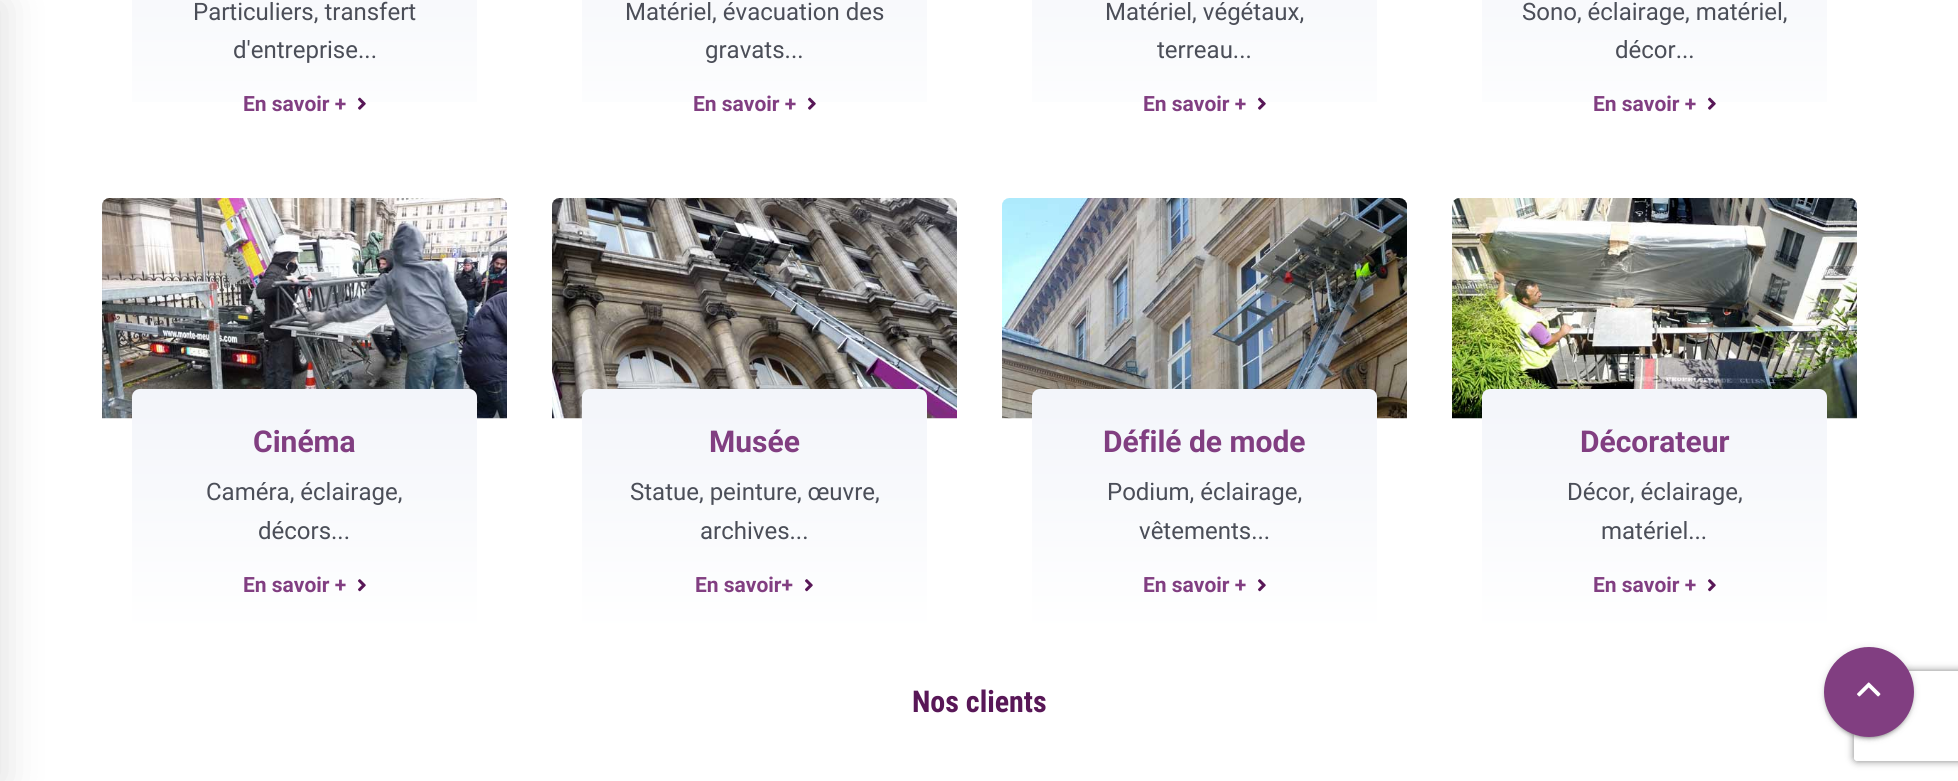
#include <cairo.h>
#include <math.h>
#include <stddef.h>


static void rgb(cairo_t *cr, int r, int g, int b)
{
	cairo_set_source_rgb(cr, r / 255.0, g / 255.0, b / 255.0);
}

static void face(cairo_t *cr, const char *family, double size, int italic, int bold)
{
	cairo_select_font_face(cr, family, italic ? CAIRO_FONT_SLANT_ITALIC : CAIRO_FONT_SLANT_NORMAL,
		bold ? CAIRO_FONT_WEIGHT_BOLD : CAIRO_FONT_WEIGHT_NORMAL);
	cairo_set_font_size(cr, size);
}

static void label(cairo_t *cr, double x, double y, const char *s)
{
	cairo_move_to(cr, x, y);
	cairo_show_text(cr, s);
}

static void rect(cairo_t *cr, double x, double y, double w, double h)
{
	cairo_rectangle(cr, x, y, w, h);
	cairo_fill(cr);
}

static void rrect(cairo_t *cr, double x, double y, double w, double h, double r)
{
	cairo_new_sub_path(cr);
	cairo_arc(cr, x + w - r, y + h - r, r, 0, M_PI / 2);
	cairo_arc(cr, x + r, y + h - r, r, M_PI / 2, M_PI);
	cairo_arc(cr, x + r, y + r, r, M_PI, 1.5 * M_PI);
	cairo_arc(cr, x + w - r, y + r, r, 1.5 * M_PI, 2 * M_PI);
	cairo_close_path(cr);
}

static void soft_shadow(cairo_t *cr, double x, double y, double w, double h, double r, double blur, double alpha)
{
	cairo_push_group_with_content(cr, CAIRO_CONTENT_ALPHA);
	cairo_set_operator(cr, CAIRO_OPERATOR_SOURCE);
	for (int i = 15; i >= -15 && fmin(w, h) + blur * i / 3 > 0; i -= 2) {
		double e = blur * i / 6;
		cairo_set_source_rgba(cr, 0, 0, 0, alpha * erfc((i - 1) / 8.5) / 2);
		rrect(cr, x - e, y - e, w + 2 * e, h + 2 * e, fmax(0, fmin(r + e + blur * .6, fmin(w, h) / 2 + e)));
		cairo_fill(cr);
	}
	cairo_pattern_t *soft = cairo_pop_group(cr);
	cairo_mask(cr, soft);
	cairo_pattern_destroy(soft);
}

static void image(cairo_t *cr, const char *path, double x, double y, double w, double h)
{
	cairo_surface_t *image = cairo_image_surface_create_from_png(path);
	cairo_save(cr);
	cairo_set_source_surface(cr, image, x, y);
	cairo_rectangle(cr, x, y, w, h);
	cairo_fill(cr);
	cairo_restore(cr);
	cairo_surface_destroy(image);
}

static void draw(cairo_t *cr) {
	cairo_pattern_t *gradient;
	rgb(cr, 255, 255, 255);
	cairo_paint(cr);
	rgb(cr, 0, 0, 0);
	soft_shadow(cr, -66, 2, 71, 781, 0, 22, 0.12);
	gradient = cairo_pattern_create_linear(305, -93, 305, 153);
	cairo_pattern_add_color_stop_rgba(gradient, 0, 0.953, 0.961, 0.98, 1);
	cairo_pattern_add_color_stop_rgba(gradient, 1, 1, 1, 1, 1);
	cairo_set_source(cr, gradient);
	cairo_pattern_destroy(gradient);
	rect(cr, 132, 0, 345, 102);
	face(cr, "Roboto", 24, 0, 0);
	rgb(cr, 75, 78, 88);
	label(cr, 193, 20, "Particuliers, transfert");
	label(cr, 233, 58, "d'entreprise...");
	face(cr, "Roboto", 21, 0, 1);
	rgb(cr, 129, 62, 129);
	label(cr, 243, 111, "En savoir +");
	image(cr, "image0.png", 358, 97, 8, 13);
	gradient = cairo_pattern_create_linear(755, -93, 755, 153);
	cairo_pattern_add_color_stop_rgba(gradient, 0, 0.953, 0.961, 0.98, 1);
	cairo_pattern_add_color_stop_rgba(gradient, 1, 1, 1, 1, 1);
	cairo_set_source(cr, gradient);
	cairo_pattern_destroy(gradient);
	rect(cr, 582, 0, 345, 102);
	face(cr, "Roboto", 24, 0, 0);
	rgb(cr, 75, 78, 88);
	label(cr, 625, 20, "Matériel, évacuation des");
	label(cr, 705, 58, "gravats...");
	face(cr, "Roboto", 21, 0, 1);
	rgb(cr, 129, 62, 129);
	label(cr, 693, 111, "En savoir +");
	image(cr, "image0.png", 808, 97, 8, 13);
	gradient = cairo_pattern_create_linear(1205, -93, 1205, 153);
	cairo_pattern_add_color_stop_rgba(gradient, 0, 0.953, 0.961, 0.98, 1);
	cairo_pattern_add_color_stop_rgba(gradient, 1, 1, 1, 1, 1);
	cairo_set_source(cr, gradient);
	cairo_pattern_destroy(gradient);
	rect(cr, 1032, 0, 345, 102);
	face(cr, "Roboto", 24, 0, 0);
	rgb(cr, 75, 78, 88);
	label(cr, 1105, 20, "Matériel, végétaux,");
	label(cr, 1157, 58, "terreau...");
	face(cr, "Roboto", 21, 0, 1);
	rgb(cr, 129, 62, 129);
	label(cr, 1143, 111, "En savoir +");
	image(cr, "image0.png", 1258, 97, 8, 13);
	gradient = cairo_pattern_create_linear(1655, -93, 1655, 153);
	cairo_pattern_add_color_stop_rgba(gradient, 0, 0.953, 0.961, 0.98, 1);
	cairo_pattern_add_color_stop_rgba(gradient, 1, 1, 1, 1, 1);
	cairo_set_source(cr, gradient);
	cairo_pattern_destroy(gradient);
	rect(cr, 1482, 0, 345, 102);
	face(cr, "Roboto", 24, 0, 0);
	rgb(cr, 75, 78, 88);
	label(cr, 1522, 20, "Sono, éclairage, matériel,");
	label(cr, 1615, 58, "décor...");
	face(cr, "Roboto", 21, 0, 1);
	rgb(cr, 129, 62, 129);
	label(cr, 1593, 111, "En savoir +");
	image(cr, "image0.png", 1708, 97, 8, 13);
	image(cr, "image1.png", 102, 198, 405, 221);
	gradient = cairo_pattern_create_linear(305, 389, 305, 633);
	cairo_pattern_add_color_stop_rgba(gradient, 0, 0.953, 0.961, 0.98, 1);
	cairo_pattern_add_color_stop_rgba(gradient, 1, 1, 1, 1, 1);
	cairo_set_source(cr, gradient);
	cairo_pattern_destroy(gradient);
	cairo_new_path(cr);
	cairo_move_to(cr, 140, 389);
	cairo_line_to(cr, 469, 389);
	cairo_curve_to(cr, 473.5, 389, 477, 392.5, 477, 397);
	cairo_line_to(cr, 477, 633);
	cairo_line_to(cr, 132, 633);
	cairo_line_to(cr, 132, 397);
	cairo_curve_to(cr, 132, 392.5, 135.5, 389, 140, 389);
	cairo_close_path(cr);
	cairo_fill(cr);
	face(cr, "Roboto", 30, 0, 1);
	rgb(cr, 129, 62, 129);
	label(cr, 253, 452, "Cinéma");
	face(cr, "Roboto", 24, 0, 0);
	rgb(cr, 75, 78, 88);
	label(cr, 206, 500, "Caméra, éclairage,");
	label(cr, 258, 539, "décors...");
	face(cr, "Roboto", 21, 0, 1);
	rgb(cr, 129, 62, 129);
	label(cr, 243, 592, "En savoir +");
	image(cr, "image2.png", 358, 579, 8, 13);
	image(cr, "image3.png", 552, 198, 405, 221);
	gradient = cairo_pattern_create_linear(755, 389, 755, 633);
	cairo_pattern_add_color_stop_rgba(gradient, 0, 0.953, 0.961, 0.98, 1);
	cairo_pattern_add_color_stop_rgba(gradient, 1, 1, 1, 1, 1);
	cairo_set_source(cr, gradient);
	cairo_pattern_destroy(gradient);
	cairo_new_path(cr);
	cairo_move_to(cr, 590, 389);
	cairo_line_to(cr, 919, 389);
	cairo_curve_to(cr, 923.5, 389, 927, 392.5, 927, 397);
	cairo_line_to(cr, 927, 633);
	cairo_line_to(cr, 582, 633);
	cairo_line_to(cr, 582, 397);
	cairo_curve_to(cr, 582, 392.5, 585.5, 389, 590, 389);
	cairo_close_path(cr);
	cairo_fill(cr);
	face(cr, "Roboto", 30, 0, 1);
	rgb(cr, 129, 62, 129);
	label(cr, 709, 452, "Musée");
	face(cr, "Roboto", 24, 0, 0);
	rgb(cr, 75, 78, 88);
	label(cr, 630, 500, "Statue, peinture, œuvre,");
	label(cr, 700, 539, "archives...");
	face(cr, "Roboto", 21, 0, 1);
	rgb(cr, 129, 62, 129);
	label(cr, 695, 592, "En savoir+");
	image(cr, "image2.png", 805, 579, 8, 13);
	image(cr, "image4.png", 1002, 198, 405, 221);
	gradient = cairo_pattern_create_linear(1205, 389, 1205, 633);
	cairo_pattern_add_color_stop_rgba(gradient, 0, 0.953, 0.961, 0.98, 1);
	cairo_pattern_add_color_stop_rgba(gradient, 1, 1, 1, 1, 1);
	cairo_set_source(cr, gradient);
	cairo_pattern_destroy(gradient);
	cairo_new_path(cr);
	cairo_move_to(cr, 1040, 389);
	cairo_line_to(cr, 1369, 389);
	cairo_curve_to(cr, 1373.5, 389, 1377, 392.5, 1377, 397);
	cairo_line_to(cr, 1377, 633);
	cairo_line_to(cr, 1032, 633);
	cairo_line_to(cr, 1032, 397);
	cairo_curve_to(cr, 1032, 392.5, 1035.5, 389, 1040, 389);
	cairo_close_path(cr);
	cairo_fill(cr);
	face(cr, "Roboto", 30, 0, 1);
	rgb(cr, 129, 62, 129);
	label(cr, 1103, 452, "Défilé de mode");
	face(cr, "Roboto", 24, 0, 0);
	rgb(cr, 75, 78, 88);
	label(cr, 1107, 500, "Podium, éclairage,");
	label(cr, 1139, 539, "vêtements...");
	face(cr, "Roboto", 21, 0, 1);
	rgb(cr, 129, 62, 129);
	label(cr, 1143, 592, "En savoir +");
	image(cr, "image2.png", 1258, 579, 8, 13);
	image(cr, "image5.png", 1452, 198, 405, 221);
	gradient = cairo_pattern_create_linear(1655, 389, 1655, 633);
	cairo_pattern_add_color_stop_rgba(gradient, 0, 0.953, 0.961, 0.98, 1);
	cairo_pattern_add_color_stop_rgba(gradient, 1, 1, 1, 1, 1);
	cairo_set_source(cr, gradient);
	cairo_pattern_destroy(gradient);
	cairo_new_path(cr);
	cairo_move_to(cr, 1490, 389);
	cairo_line_to(cr, 1819, 389);
	cairo_curve_to(cr, 1823.5, 389, 1827, 392.5, 1827, 397);
	cairo_line_to(cr, 1827, 633);
	cairo_line_to(cr, 1482, 633);
	cairo_line_to(cr, 1482, 397);
	cairo_curve_to(cr, 1482, 392.5, 1485.5, 389, 1490, 389);
	cairo_close_path(cr);
	cairo_fill(cr);
	face(cr, "Roboto", 30, 0, 1);
	rgb(cr, 129, 62, 129);
	label(cr, 1580, 452, "Décorateur");
	face(cr, "Roboto", 24, 0, 0);
	rgb(cr, 75, 78, 88);
	label(cr, 1567, 500, "Décor, éclairage,");
	label(cr, 1601, 539, "matériel...");
	face(cr, "Roboto", 21, 0, 1);
	rgb(cr, 129, 62, 129);
	label(cr, 1593, 592, "En savoir +");
	image(cr, "image2.png", 1708, 579, 8, 13);
	face(cr, "Roboto Condensed", 30, 0, 1);
	rgb(cr, 88, 23, 87);
	label(cr, 912, 712, "Nos clients");
	rgb(cr, 0, 0, 0);
	soft_shadow(cr, 1827, 654, 84, 84, 42, 1, 0.2);
	soft_shadow(cr, 1824, 648, 90, 90, 45, 4, 0.12);
	soft_shadow(cr, 1824, 650, 90, 90, 45, 1.5, 0.14);
	cairo_save(cr);
	cairo_set_fill_rule(cr, CAIRO_FILL_RULE_EVEN_ODD);
	cairo_new_path(cr);
	cairo_move_to(cr, 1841, 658);
	cairo_line_to(cr, 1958, 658);
	cairo_line_to(cr, 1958, 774);
	cairo_line_to(cr, 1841, 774);
	cairo_close_path(cr);
	cairo_move_to(cr, 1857, 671);
	cairo_line_to(cr, 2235, 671);
	cairo_curve_to(cr, 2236.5, 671, 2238, 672.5, 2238, 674);
	cairo_line_to(cr, 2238, 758);
	cairo_curve_to(cr, 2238, 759.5, 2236.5, 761, 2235, 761);
	cairo_line_to(cr, 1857, 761);
	cairo_curve_to(cr, 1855.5, 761, 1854, 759.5, 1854, 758);
	cairo_line_to(cr, 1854, 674);
	cairo_curve_to(cr, 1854, 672.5, 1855.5, 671, 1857, 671);
	cairo_close_path(cr);
	cairo_clip(cr);
	rgb(cr, 128, 128, 128);
	soft_shadow(cr, 1854, 671, 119, 90, 3, 4, 1);
	cairo_restore(cr);
	rgb(cr, 129, 62, 129);
	cairo_arc(cr, 1869, 692, 45, 0, 2 * M_PI);
	cairo_fill(cr);
	image(cr, "image6.png", 1857, 682, 24, 15);
}

int main(void) {
	cairo_surface_t *surface = cairo_image_surface_create(CAIRO_FORMAT_RGB24, 1958, 781);
	cairo_t *cr = cairo_create(surface);
	cairo_font_options_t *options = cairo_font_options_create();
	cairo_font_options_set_hint_metrics(options, CAIRO_HINT_METRICS_OFF);
	cairo_font_options_set_hint_style(options, CAIRO_HINT_STYLE_NONE);
	cairo_set_font_options(cr, options);
	cairo_set_miter_limit(cr, 4);
	draw(cr);
	cairo_surface_write_to_png(surface, "render.png");
	cairo_font_options_destroy(options);
	cairo_destroy(cr);
	cairo_surface_destroy(surface);
	return 0;
}
